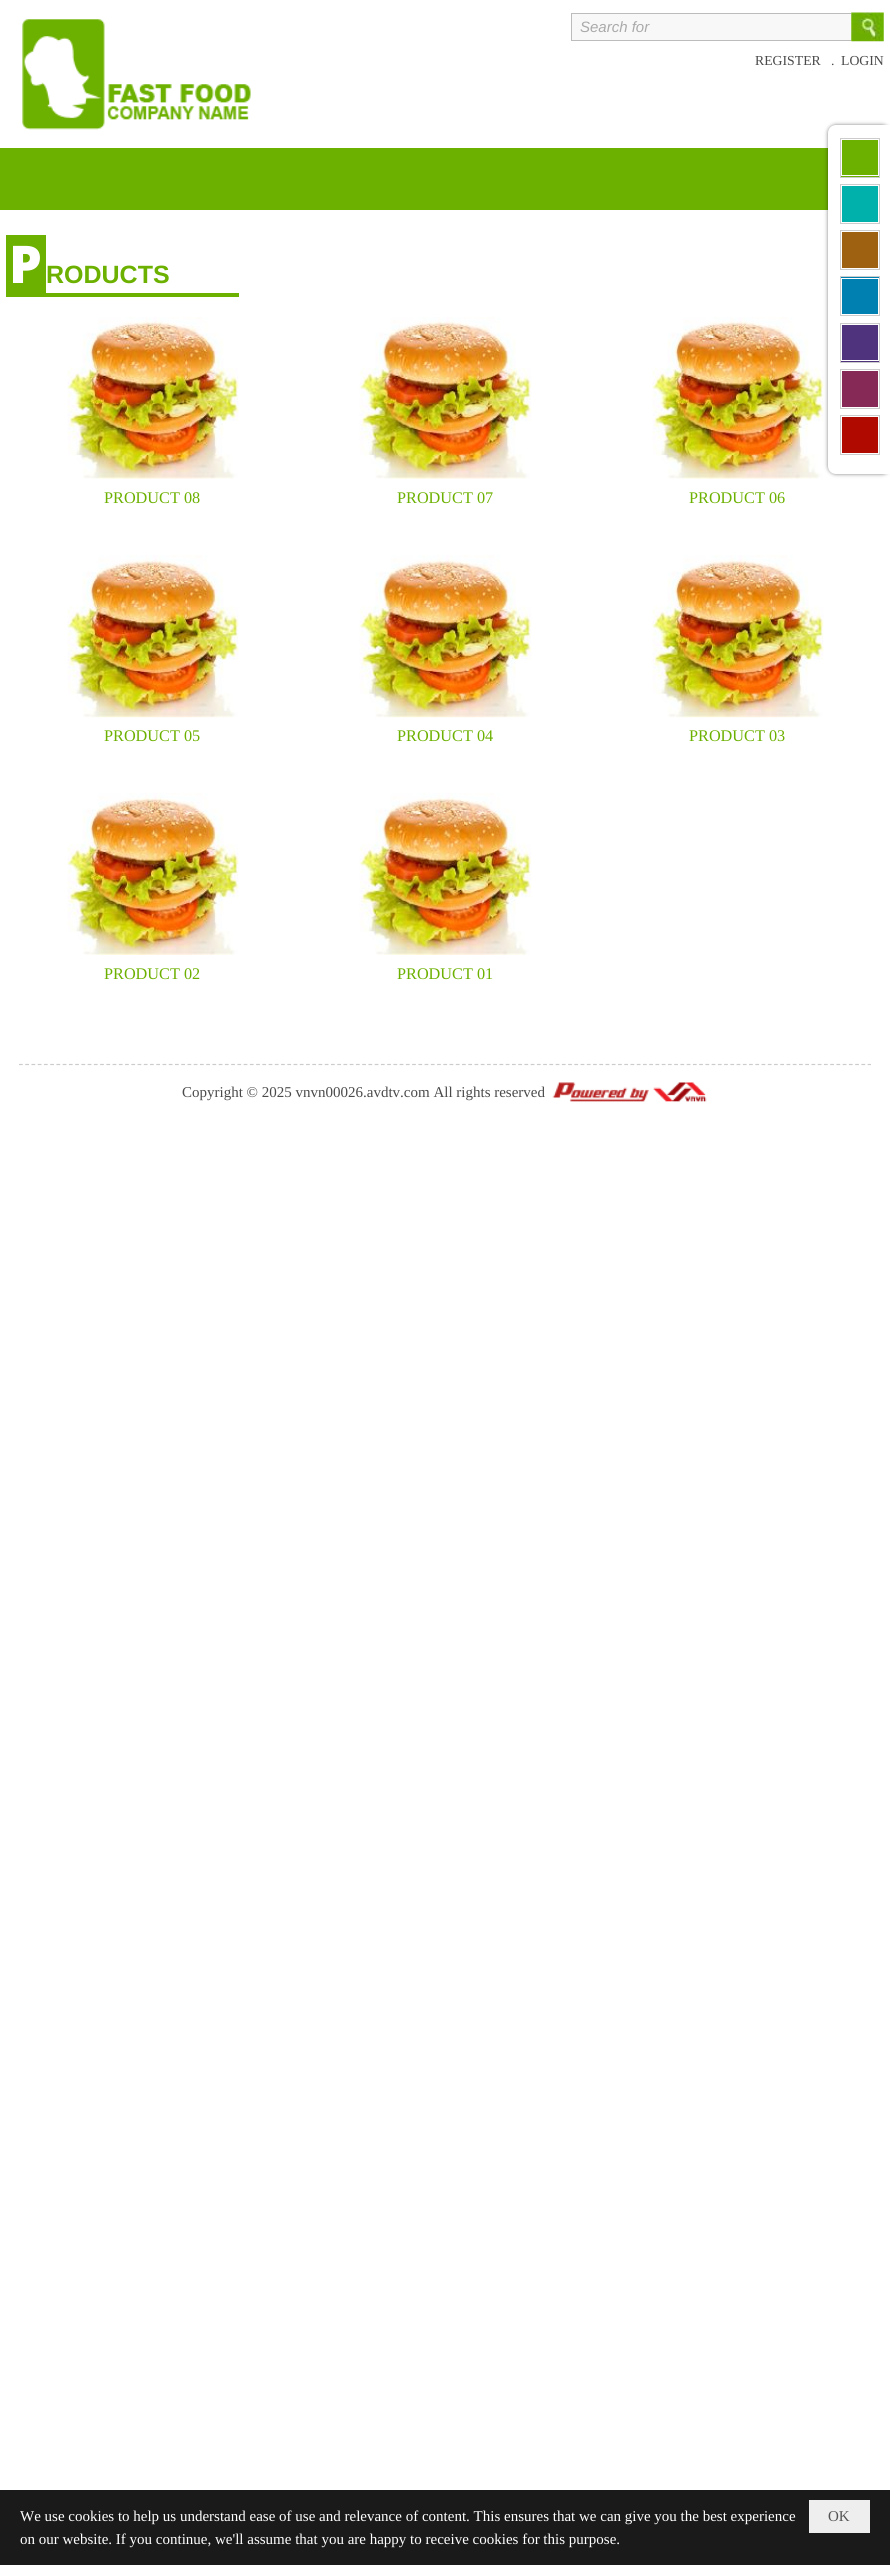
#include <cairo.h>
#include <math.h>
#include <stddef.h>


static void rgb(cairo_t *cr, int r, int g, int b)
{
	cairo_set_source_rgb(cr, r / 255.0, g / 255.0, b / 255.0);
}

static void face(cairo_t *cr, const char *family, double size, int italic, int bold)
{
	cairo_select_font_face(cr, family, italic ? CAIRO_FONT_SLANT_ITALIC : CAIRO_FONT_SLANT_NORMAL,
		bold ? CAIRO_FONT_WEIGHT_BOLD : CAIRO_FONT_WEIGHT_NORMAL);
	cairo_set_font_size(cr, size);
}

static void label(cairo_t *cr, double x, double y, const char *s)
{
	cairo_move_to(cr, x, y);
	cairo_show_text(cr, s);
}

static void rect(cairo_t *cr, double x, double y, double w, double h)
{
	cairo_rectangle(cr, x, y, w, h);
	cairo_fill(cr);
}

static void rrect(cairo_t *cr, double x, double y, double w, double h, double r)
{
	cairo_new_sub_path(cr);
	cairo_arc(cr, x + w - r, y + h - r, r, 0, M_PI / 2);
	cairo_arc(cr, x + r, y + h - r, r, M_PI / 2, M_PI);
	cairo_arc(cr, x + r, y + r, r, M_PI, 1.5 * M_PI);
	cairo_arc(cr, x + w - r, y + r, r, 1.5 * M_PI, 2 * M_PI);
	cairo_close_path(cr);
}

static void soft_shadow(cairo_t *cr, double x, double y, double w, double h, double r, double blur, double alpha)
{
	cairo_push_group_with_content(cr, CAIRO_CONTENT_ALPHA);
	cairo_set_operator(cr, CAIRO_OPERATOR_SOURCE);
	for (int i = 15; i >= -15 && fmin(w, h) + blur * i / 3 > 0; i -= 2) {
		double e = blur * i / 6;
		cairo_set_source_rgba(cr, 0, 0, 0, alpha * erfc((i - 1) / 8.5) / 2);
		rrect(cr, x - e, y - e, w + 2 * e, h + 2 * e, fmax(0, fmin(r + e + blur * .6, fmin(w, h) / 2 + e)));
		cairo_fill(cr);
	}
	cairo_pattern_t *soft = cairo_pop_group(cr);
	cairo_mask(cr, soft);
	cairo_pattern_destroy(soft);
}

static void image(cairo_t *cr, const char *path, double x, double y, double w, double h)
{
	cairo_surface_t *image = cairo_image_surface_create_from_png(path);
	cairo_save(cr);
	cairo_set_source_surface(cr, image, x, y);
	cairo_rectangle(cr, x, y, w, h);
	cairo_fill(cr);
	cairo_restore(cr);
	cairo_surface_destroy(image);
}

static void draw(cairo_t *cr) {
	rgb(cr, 255, 255, 255);
	cairo_paint(cr);
	image(cr, "image0.png", 22, 19, 229, 111);
	rgb(cr, 248, 248, 248);
	rect(cr, 572, 14, 279, 26);
	rgb(cr, 188, 188, 188);
	rect(cr, 571, 13, 280, 1);
	rect(cr, 571, 40, 280, 1);
	rect(cr, 571, 13, 1, 28);
	face(cr, "Liberation Sans", 15, 1, 0);
	rgb(cr, 170, 170, 170);
	label(cr, 580, 32, "Search for");
	image(cr, "image1.png", 851, 12, 33, 30);
	face(cr, "Liberation Serif", 13.75, 0, 0);
	rgb(cr, 74, 74, 74);
	label(cr, 755, 65, "REGISTER");
	label(cr, 831, 65, ".");
	label(cr, 841, 65, "LOGIN");
	rgb(cr, 108, 176, 0);
	rect(cr, 0, 148, 828, 62);
	rect(cr, 6, 293, 233, 4);
	rect(cr, 6, 235, 40, 58);
	face(cr, "Noto Sans Black", 52, 0, 0);
	rgb(cr, 255, 255, 255);
	label(cr, 9, 283, "P");
	face(cr, "Liberation Sans", 25, 0, 1);
	rgb(cr, 108, 176, 0);
	label(cr, 46, 283, "RODUCTS");
	image(cr, "image2.png", 67, 317, 172, 162);
	face(cr, "Liberation Serif", 16.25, 0, 0);
	label(cr, 104, 503, "PRODUCT 08");
	image(cr, "image3.png", 359, 317, 173, 162);
	label(cr, 397, 503, "PRODUCT 07");
	image(cr, "image4.png", 652, 317, 172, 162);
	label(cr, 689, 503, "PRODUCT 06");
	image(cr, "image5.png", 67, 555, 172, 163);
	label(cr, 104, 741, "PRODUCT 05");
	image(cr, "image6.png", 359, 555, 173, 163);
	label(cr, 397, 741, "PRODUCT 04");
	image(cr, "image7.png", 652, 555, 172, 163);
	label(cr, 689, 741, "PRODUCT 03");
	image(cr, "image8.png", 67, 793, 172, 162);
	label(cr, 104, 979, "PRODUCT 02");
	image(cr, "image9.png", 359, 793, 173, 162);
	label(cr, 397, 979, "PRODUCT 01");
	cairo_new_path(cr);
	cairo_move_to(cr, 19, 1064.5);
	cairo_line_to(cr, 871, 1064.5);
	rgb(cr, 204, 204, 204);
	cairo_set_line_width(cr, 1.2);
	cairo_set_dash(cr, (double[]){3.75, 2.49}, 2, 0);
	cairo_stroke(cr);
	face(cr, "Liberation Serif", 15, 0, 0);
	rgb(cr, 74, 74, 74);
	label(cr, 182, 1097, "Copyright © 2025 vnvn00026.avdtv.com All rights reserved");
	image(cr, "image10.png", 552, 1082, 155, 20);
	rgb(cr, 0, 0, 0);
	soft_shadow(cr, 828, 125, 62, 349, 8, 2, 0.5);
	rgb(cr, 255, 255, 255);
	cairo_new_path(cr);
	cairo_move_to(cr, 836, 125);
	cairo_line_to(cr, 890, 125);
	cairo_line_to(cr, 890, 474);
	cairo_line_to(cr, 836, 474);
	cairo_curve_to(cr, 831.5, 474, 828, 470.5, 828, 466);
	cairo_line_to(cr, 828, 133);
	cairo_curve_to(cr, 828, 128.5, 831.5, 125, 836, 125);
	cairo_close_path(cr);
	cairo_fill(cr);
	rgb(cr, 108, 176, 0);
	rect(cr, 841, 140, 38, 37);
	cairo_rectangle(cr, 841.5, 139.5, 37, 36);
	rgb(cr, 255, 255, 255);
	cairo_set_line_width(cr, 1);
	cairo_set_dash(cr, NULL, 0, 0);
	cairo_stroke(cr);
	cairo_rectangle(cr, 840.5, 138.5, 39, 39);
	rgb(cr, 204, 204, 204);
	cairo_stroke(cr);
	rgb(cr, 0, 176, 170);
	rect(cr, 842, 186, 36, 36);
	cairo_rectangle(cr, 840.5, 184.5, 39, 39);
	rgb(cr, 204, 204, 204);
	cairo_stroke(cr);
	rgb(cr, 158, 97, 17);
	rect(cr, 842, 232, 36, 36);
	cairo_rectangle(cr, 840.5, 230.5, 39, 39);
	rgb(cr, 204, 204, 204);
	cairo_stroke(cr);
	rgb(cr, 0, 128, 176);
	rect(cr, 841, 277, 38, 37);
	cairo_rectangle(cr, 841.5, 278.5, 37, 36);
	rgb(cr, 255, 255, 255);
	cairo_stroke(cr);
	cairo_rectangle(cr, 840.5, 276.5, 39, 39);
	rgb(cr, 204, 204, 204);
	cairo_stroke(cr);
	rgb(cr, 80, 51, 125);
	rect(cr, 841, 325, 38, 37);
	cairo_rectangle(cr, 841.5, 324.5, 37, 36);
	rgb(cr, 255, 255, 255);
	cairo_stroke(cr);
	cairo_rectangle(cr, 840.5, 323.5, 39, 39);
	rgb(cr, 204, 204, 204);
	cairo_stroke(cr);
	rgb(cr, 134, 41, 87);
	rect(cr, 842, 371, 36, 36);
	cairo_rectangle(cr, 840.5, 369.5, 39, 39);
	rgb(cr, 204, 204, 204);
	cairo_stroke(cr);
	rgb(cr, 176, 10, 0);
	rect(cr, 842, 417, 36, 36);
	cairo_rectangle(cr, 840.5, 415.5, 39, 39);
	rgb(cr, 204, 204, 204);
	cairo_stroke(cr);
	rgb(cr, 26, 26, 26);
	rect(cr, 0, 2490, 890, 75);
	rgb(cr, 255, 255, 255);
	label(cr, 20, 2521, "We use cookies to help us understand ease of use and relevance of content. This ensures that we can give you the best experience");
	label(cr, 20, 2544, "on our website. If you continue, we'll assume that you are happy to receive cookies for this purpose.");
	rgb(cr, 238, 238, 238);
	rect(cr, 809, 2500, 61, 33);
	rgb(cr, 85, 85, 85);
	label(cr, 828, 2521, "OK");
}

int main(void) {
	cairo_surface_t *surface = cairo_image_surface_create(CAIRO_FORMAT_RGB24, 890, 2565);
	cairo_t *cr = cairo_create(surface);
	cairo_font_options_t *options = cairo_font_options_create();
	cairo_font_options_set_hint_metrics(options, CAIRO_HINT_METRICS_OFF);
	cairo_font_options_set_hint_style(options, CAIRO_HINT_STYLE_NONE);
	cairo_set_font_options(cr, options);
	cairo_set_miter_limit(cr, 4);
	draw(cr);
	cairo_surface_write_to_png(surface, "render.png");
	cairo_font_options_destroy(options);
	cairo_destroy(cr);
	cairo_surface_destroy(surface);
	return 0;
}
